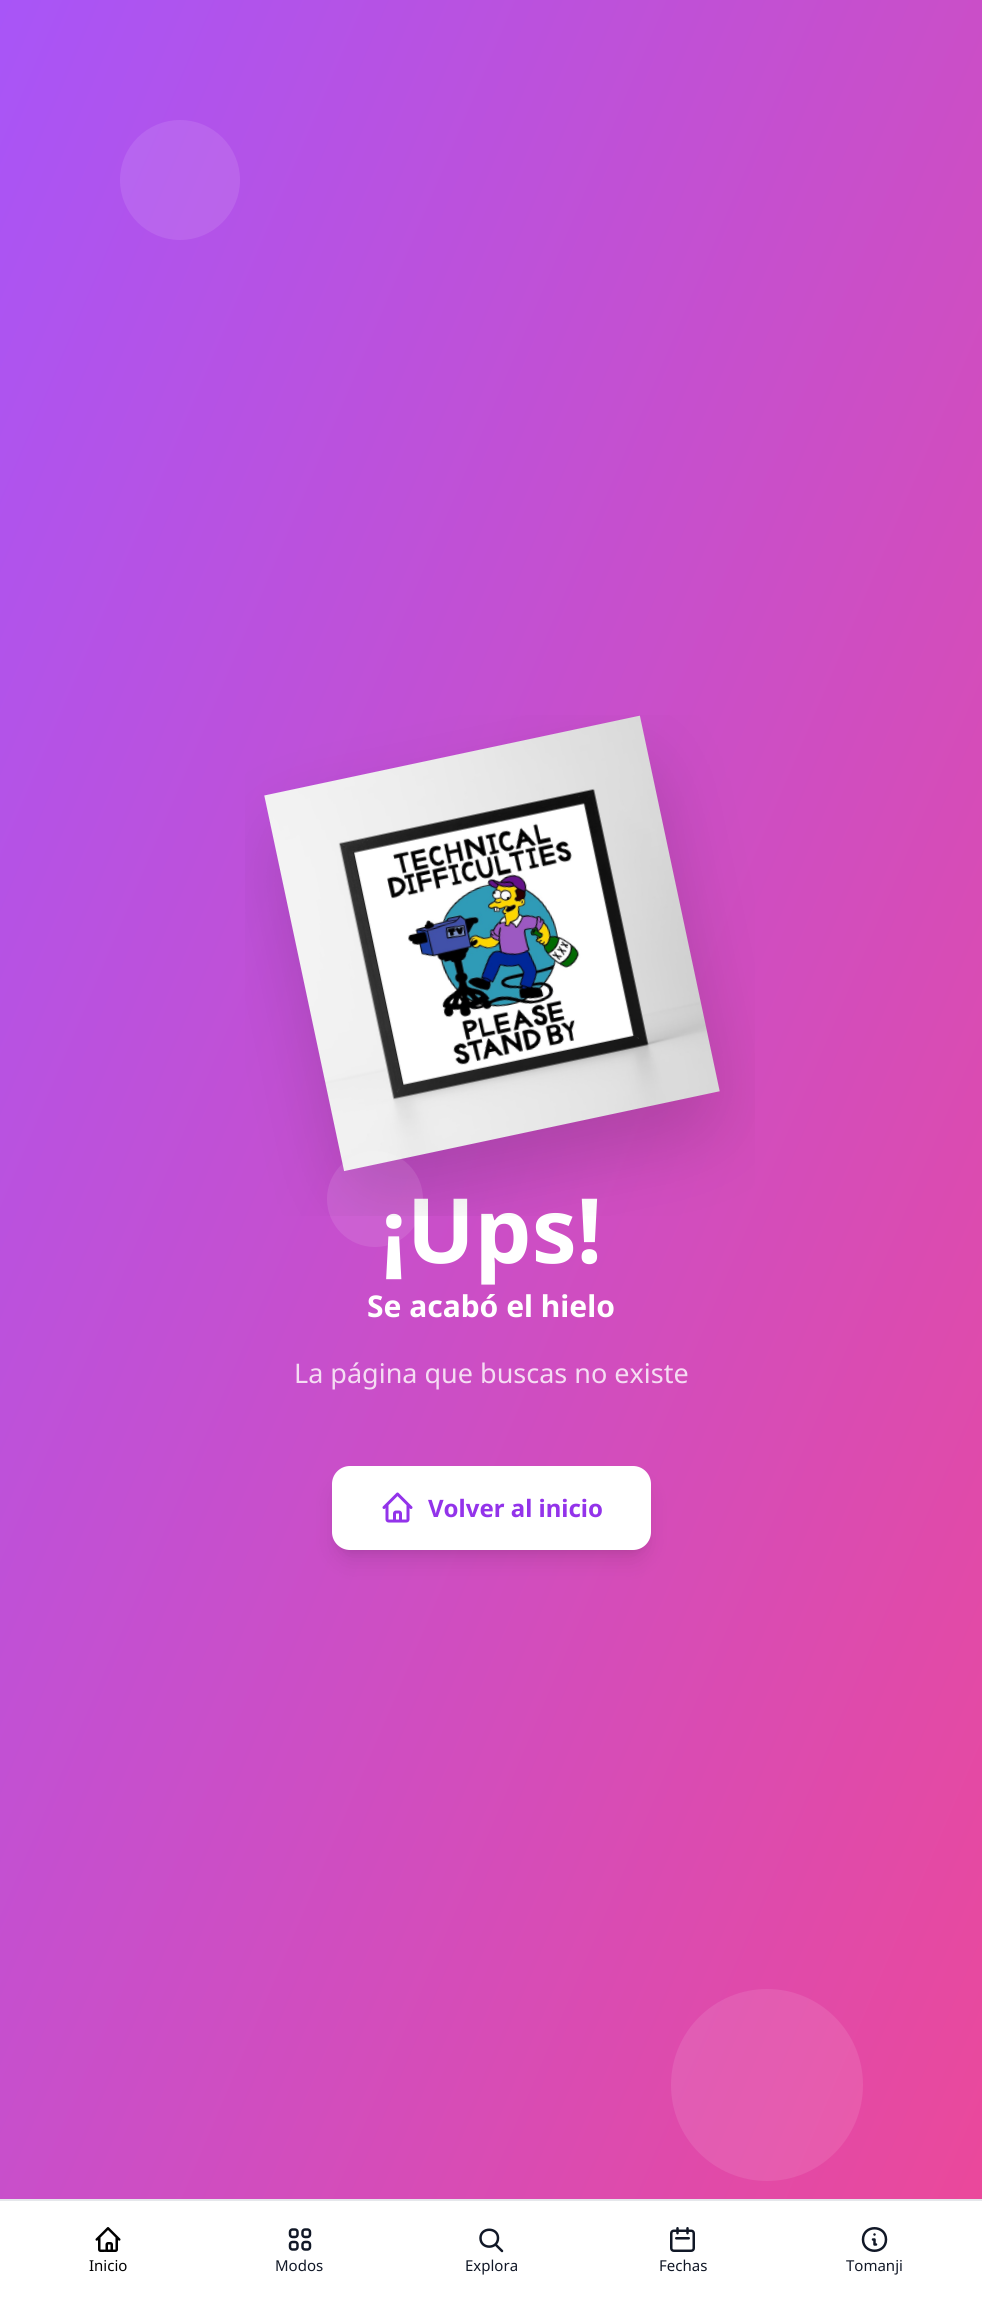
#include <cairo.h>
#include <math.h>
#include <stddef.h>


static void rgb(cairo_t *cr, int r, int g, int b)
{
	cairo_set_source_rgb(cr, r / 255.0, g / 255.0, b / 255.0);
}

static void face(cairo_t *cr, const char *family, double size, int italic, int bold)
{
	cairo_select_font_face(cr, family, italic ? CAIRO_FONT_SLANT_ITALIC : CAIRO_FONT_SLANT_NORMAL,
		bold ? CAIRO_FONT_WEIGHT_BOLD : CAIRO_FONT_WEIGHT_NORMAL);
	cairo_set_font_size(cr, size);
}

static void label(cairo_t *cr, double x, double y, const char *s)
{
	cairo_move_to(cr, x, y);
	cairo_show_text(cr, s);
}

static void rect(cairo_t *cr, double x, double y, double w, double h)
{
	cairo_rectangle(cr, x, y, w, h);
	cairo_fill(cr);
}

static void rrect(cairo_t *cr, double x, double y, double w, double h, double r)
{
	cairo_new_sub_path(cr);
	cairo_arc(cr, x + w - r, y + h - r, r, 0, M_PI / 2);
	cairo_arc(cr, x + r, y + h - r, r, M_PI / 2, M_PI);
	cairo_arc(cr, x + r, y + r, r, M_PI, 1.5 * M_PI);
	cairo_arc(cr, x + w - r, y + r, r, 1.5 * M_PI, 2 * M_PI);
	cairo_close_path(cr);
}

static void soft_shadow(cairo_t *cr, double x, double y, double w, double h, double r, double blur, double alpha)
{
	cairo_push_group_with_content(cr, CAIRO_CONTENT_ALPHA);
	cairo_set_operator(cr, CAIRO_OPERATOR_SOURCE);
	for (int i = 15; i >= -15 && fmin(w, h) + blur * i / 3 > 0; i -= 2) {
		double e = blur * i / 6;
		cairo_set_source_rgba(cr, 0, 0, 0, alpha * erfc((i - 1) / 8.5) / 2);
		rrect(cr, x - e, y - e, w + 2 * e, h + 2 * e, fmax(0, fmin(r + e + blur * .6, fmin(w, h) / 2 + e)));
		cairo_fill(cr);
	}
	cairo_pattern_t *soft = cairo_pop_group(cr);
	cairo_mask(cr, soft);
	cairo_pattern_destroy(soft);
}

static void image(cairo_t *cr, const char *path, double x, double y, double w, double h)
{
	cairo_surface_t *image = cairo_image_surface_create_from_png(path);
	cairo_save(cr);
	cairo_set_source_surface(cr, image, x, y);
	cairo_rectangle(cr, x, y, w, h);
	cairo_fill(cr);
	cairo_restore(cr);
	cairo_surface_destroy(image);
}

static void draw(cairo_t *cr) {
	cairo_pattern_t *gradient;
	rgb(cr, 255, 255, 255);
	cairo_paint(cr);
	gradient = cairo_pattern_create_linear(-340, 796, 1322, 1505);
	cairo_pattern_add_color_stop_rgba(gradient, 0, 0.659, 0.333, 0.969, 1);
	cairo_pattern_add_color_stop_rgba(gradient, 1, 0.925, 0.282, 0.6, 1);
	cairo_set_source(cr, gradient);
	cairo_pattern_destroy(gradient);
	rect(cr, 0, 0, 982, 2199);
	cairo_set_source_rgba(cr, 1, 1, 1, 0.1);
	cairo_arc(cr, 180, 180, 60, 0, 2 * M_PI);
	cairo_fill(cr);
	face(cr, "Noto Sans", 90, 0, 1);
	rgb(cr, 255, 255, 255);
	label(cr, 381, 1263, "¡Ups!");
	image(cr, "image0.png", 245, 715, 510, 501);
	cairo_set_source_rgba(cr, 1, 1, 1, 0.1);
	cairo_arc(cr, 375, 1199, 48, 0, 2 * M_PI);
	cairo_fill(cr);
	cairo_arc(cr, 767, 2085, 96, 0, 2 * M_PI);
	cairo_fill(cr);
	face(cr, "Noto Sans", 30, 0, 1);
	rgb(cr, 255, 255, 255);
	label(cr, 367, 1317, "Se acabó el hielo");
	face(cr, "Noto Sans", 27, 0, 0);
	rgb(cr, 245, 220, 243);
	label(cr, 294, 1383, "La página que buscas no existe");
	rgb(cr, 0, 0, 0);
	soft_shadow(cr, 338, 1478, 307, 72, 12, 4.5, 0.1);
	soft_shadow(cr, 336, 1485, 311, 75, 14, 11, 0.1);
	rgb(cr, 255, 255, 255);
	rrect(cr, 332, 1466, 319, 84, 18);
	cairo_fill(cr);
	image(cr, "image1.png", 382, 1492, 31, 31);
	face(cr, "Noto Sans", 24, 0, 1);
	rgb(cr, 147, 51, 234);
	label(cr, 428, 1517, "Volver al inicio");
	rgb(cr, 229, 231, 235);
	rect(cr, 0, 2199, 982, 2);
	image(cr, "image2.png", 95, 2227, 26, 25);
	face(cr, "Noto Sans", 15, 0, 0);
	rgb(cr, 0, 0, 0);
	label(cr, 89, 2271, "Inicio");
	image(cr, "image3.png", 288, 2228, 24, 23);
	rgb(cr, 17, 24, 39);
	label(cr, 275, 2271, "Modos");
	cairo_new_path(cr);
	cairo_move_to(cr, 502, 2251);
	cairo_line_to(cr, 495.5, 2244.5);
	cairo_move_to(cr, 498, 2238);
	cairo_curve_to(cr, 498, 2249.5, 480.5, 2249.5, 480.5, 2238);
	cairo_curve_to(cr, 480.5, 2227, 498, 2227, 498, 2238);
	cairo_close_path(cr);
	cairo_set_line_width(cr, 2.5);
	cairo_set_line_cap(cr, CAIRO_LINE_CAP_ROUND);
	cairo_set_line_join(cr, CAIRO_LINE_JOIN_ROUND);
	cairo_stroke(cr);
	label(cr, 465, 2271, "Explora");
	image(cr, "image4.png", 670, 2227, 25, 25);
	label(cr, 659, 2271, "Fechas");
	cairo_new_path(cr);
	cairo_move_to(cr, 876, 2244.5);
	cairo_line_to(cr, 874.5, 2244.5);
	cairo_line_to(cr, 874.5, 2239.5);
	cairo_line_to(cr, 873, 2239.5);
	cairo_move_to(cr, 874.5, 2234.5);
	cairo_line_to(cr, 874.5, 2234.5);
	cairo_move_to(cr, 886, 2239.5);
	cairo_curve_to(cr, 886, 2254.5, 863, 2254.5, 863, 2239.5);
	cairo_curve_to(cr, 863, 2224.5, 886, 2224.5, 886, 2239.5);
	cairo_close_path(cr);
	cairo_stroke(cr);
	label(cr, 846, 2271, "Tomanji");
}

int main(void) {
	cairo_surface_t *surface = cairo_image_surface_create(CAIRO_FORMAT_RGB24, 982, 2300);
	cairo_t *cr = cairo_create(surface);
	cairo_font_options_t *options = cairo_font_options_create();
	cairo_font_options_set_hint_metrics(options, CAIRO_HINT_METRICS_OFF);
	cairo_font_options_set_hint_style(options, CAIRO_HINT_STYLE_NONE);
	cairo_set_font_options(cr, options);
	cairo_set_miter_limit(cr, 4);
	draw(cr);
	cairo_surface_write_to_png(surface, "render.png");
	cairo_font_options_destroy(options);
	cairo_destroy(cr);
	cairo_surface_destroy(surface);
	return 0;
}
